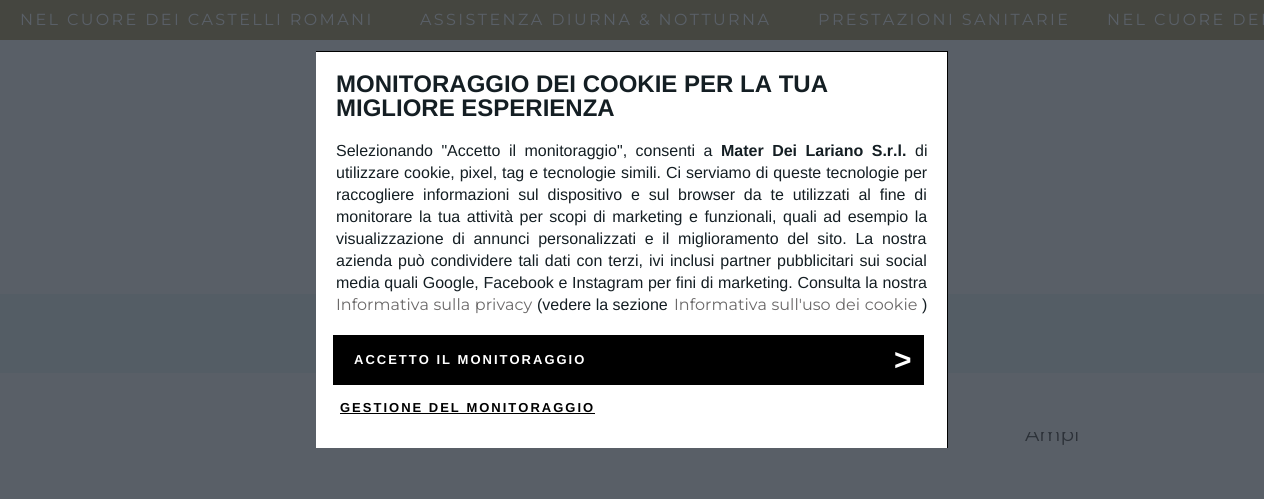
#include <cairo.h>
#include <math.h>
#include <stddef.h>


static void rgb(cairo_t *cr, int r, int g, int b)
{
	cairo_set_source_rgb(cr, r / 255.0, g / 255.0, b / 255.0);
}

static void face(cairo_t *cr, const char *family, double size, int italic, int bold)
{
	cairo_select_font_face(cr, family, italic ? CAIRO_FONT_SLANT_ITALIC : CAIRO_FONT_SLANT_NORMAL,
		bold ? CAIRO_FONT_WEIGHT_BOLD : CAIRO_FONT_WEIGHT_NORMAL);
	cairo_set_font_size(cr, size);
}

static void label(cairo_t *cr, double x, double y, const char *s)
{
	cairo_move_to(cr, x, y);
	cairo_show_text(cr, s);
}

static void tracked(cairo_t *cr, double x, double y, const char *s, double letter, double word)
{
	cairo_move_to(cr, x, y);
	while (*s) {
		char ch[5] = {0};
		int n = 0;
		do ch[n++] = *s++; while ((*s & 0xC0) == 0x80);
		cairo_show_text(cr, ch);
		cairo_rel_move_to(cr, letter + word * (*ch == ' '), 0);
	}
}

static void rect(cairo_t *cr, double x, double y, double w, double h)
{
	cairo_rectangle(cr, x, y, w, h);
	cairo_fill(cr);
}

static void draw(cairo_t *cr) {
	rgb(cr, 89, 95, 103);
	cairo_paint(cr);
	rgb(cr, 69, 70, 64);
	rect(cr, 0, 0, 1264, 40);
	face(cr, "Montserrat", 16, 0, 0);
	rgb(cr, 89, 95, 103);
	tracked(cr, 20, 25, "NEL CUORE DEI CASTELLI ROMANI", 2.4, 0);
	tracked(cr, 420, 25, "ASSISTENZA DIURNA & NOTTURNA", 2.4, 0);
	tracked(cr, 818, 25, "PRESTAZIONI SANITARIE", 2.4, 0);
	tracked(cr, 1107, 25, "NEL CUORE DEI", 2.4, 0);
	rgb(cr, 84, 93, 101);
	rect(cr, 0, 294, 1264, 79);
	cairo_save(cr);
	cairo_rectangle(cr, 842, 432, 421, 19);
	cairo_clip(cr);
	face(cr, "Montserrat", 20, 0, 0);
	rgb(cr, 44, 49, 56);
	label(cr, 1025, 441, "Ampi");
	cairo_restore(cr);
	rgb(cr, 255, 255, 255);
	rect(cr, 316, 52, 631, 396);
	rgb(cr, 0, 0, 0);
	rect(cr, 316, 51, 632, 1);
	rect(cr, 947, 51, 1, 397);
	face(cr, "Liberation Sans", 24, 0, 1);
	rgb(cr, 20, 30, 35);
	label(cr, 336, 92, "MONITORAGGIO DEI COOKIE PER LA TUA");
	label(cr, 336, 116, "MIGLIORE ESPERIENZA");
	face(cr, "Liberation Sans", 16, 0, 0);
	tracked(cr, 336, 156, "Selezionando \"Accetto il monitoraggio\", consenti a", 0, 4);
	face(cr, "Liberation Sans", 16, 0, 1);
	tracked(cr, 721, 156, "Mater Dei Lariano S.r.l.", 0, 4);
	face(cr, "Liberation Sans", 16, 0, 0);
	label(cr, 915, 156, "di");
	tracked(cr, 336, 178, "utilizzare cookie, pixel, tag e tecnologie simili. Ci serviamo di queste tecnologie per", 0, 0.5);
	tracked(cr, 336, 200, "raccogliere informazioni sul dispositivo e sul browser da te utilizzati al fine di", 0, 4.4);
	tracked(cr, 336, 222, "monitorare la tua attività per scopi di marketing e funzionali, quali ad esempio la", 0, 2.1);
	tracked(cr, 336, 244, "visualizzazione di annunci personalizzati e il miglioramento del sito. La nostra", 0, 4.25);
	tracked(cr, 336, 266, "azienda può condividere tali dati con terzi, ivi inclusi partner pubblicitari sui social", 0, 1.5);
	tracked(cr, 336, 288, "media quali Google, Facebook e Instagram per fini di marketing. Consulta la nostra", 0, 0.25);
	face(cr, "Montserrat", 16, 0, 0);
	rgb(cr, 107, 105, 105);
	tracked(cr, 336, 310, "Informativa sulla privacy", 0, 0.5);
	face(cr, "Liberation Sans", 16, 0, 0);
	rgb(cr, 20, 30, 35);
	label(cr, 537, 310, "(vedere la sezione");
	face(cr, "Montserrat", 16, 0, 0);
	rgb(cr, 107, 105, 105);
	tracked(cr, 674, 310, "Informativa sull'uso dei cookie", 0, 0.5);
	face(cr, "Liberation Sans", 16, 0, 0);
	rgb(cr, 20, 30, 35);
	label(cr, 922, 310, ")");
	rgb(cr, 0, 0, 0);
	rect(cr, 333, 335, 591, 50);
	face(cr, "Liberation Sans", 13, 0, 1);
	rgb(cr, 255, 255, 255);
	tracked(cr, 354, 364, "ACCETTO IL MONITORAGGIO", 2, 0);
	face(cr, "Liberation Sans", 30, 0, 1);
	tracked(cr, 894, 370, ">", 2, 0);
	face(cr, "Liberation Sans", 13, 0, 1);
	rgb(cr, 0, 0, 0);
	tracked(cr, 340, 412, "GESTIONE DEL MONITORAGGIO", 2, 0);
	rect(cr, 340, 413, 255, 1);
}

int main(void) {
	cairo_surface_t *surface = cairo_image_surface_create(CAIRO_FORMAT_RGB24, 1264, 499);
	cairo_t *cr = cairo_create(surface);
	cairo_font_options_t *options = cairo_font_options_create();
	cairo_font_options_set_hint_metrics(options, CAIRO_HINT_METRICS_OFF);
	cairo_font_options_set_hint_style(options, CAIRO_HINT_STYLE_NONE);
	cairo_set_font_options(cr, options);
	cairo_set_miter_limit(cr, 4);
	draw(cr);
	cairo_surface_write_to_png(surface, "render.png");
	cairo_font_options_destroy(options);
	cairo_destroy(cr);
	cairo_surface_destroy(surface);
	return 0;
}
